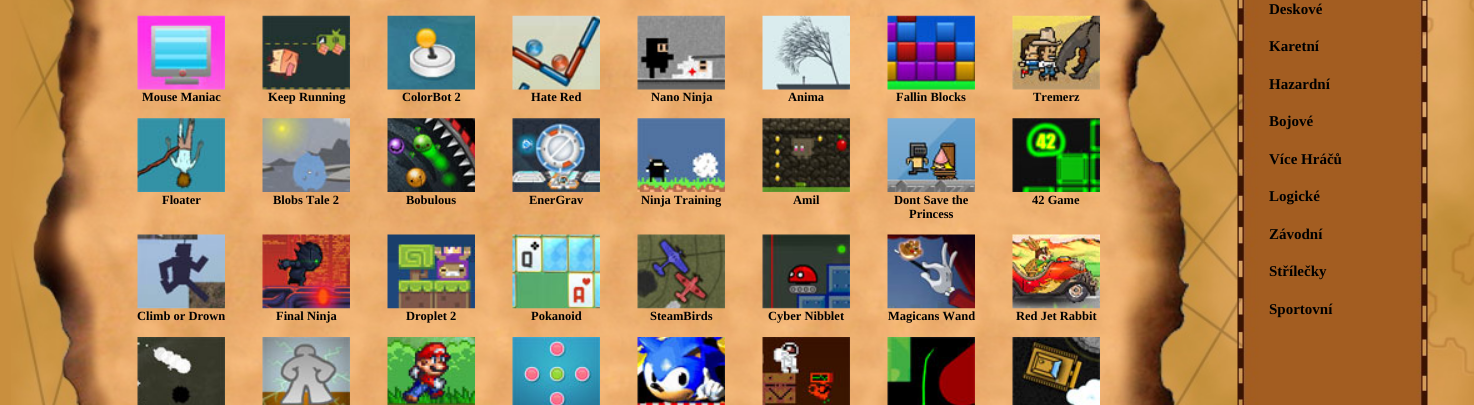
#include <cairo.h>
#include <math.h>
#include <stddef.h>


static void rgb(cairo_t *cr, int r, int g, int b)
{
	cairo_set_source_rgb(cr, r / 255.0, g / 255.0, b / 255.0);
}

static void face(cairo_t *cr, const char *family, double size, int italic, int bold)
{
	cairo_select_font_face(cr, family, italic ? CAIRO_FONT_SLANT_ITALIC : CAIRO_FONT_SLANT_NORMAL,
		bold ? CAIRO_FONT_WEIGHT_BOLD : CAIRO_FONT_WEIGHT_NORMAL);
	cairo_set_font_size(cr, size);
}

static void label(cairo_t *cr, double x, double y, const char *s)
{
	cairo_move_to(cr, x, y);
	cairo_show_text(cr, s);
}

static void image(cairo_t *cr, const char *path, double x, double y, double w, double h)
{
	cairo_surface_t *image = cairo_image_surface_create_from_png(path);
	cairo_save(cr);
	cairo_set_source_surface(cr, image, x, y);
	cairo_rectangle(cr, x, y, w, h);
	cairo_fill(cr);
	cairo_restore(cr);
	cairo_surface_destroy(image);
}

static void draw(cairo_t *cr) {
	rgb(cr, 201, 143, 62);
	cairo_paint(cr);
	image(cr, "image0.png", 11, 0, 1227, 405);
	image(cr, "image1.png", 137, 15, 88, 75);
	face(cr, "Liberation Serif", 12.5, 0, 1);
	rgb(cr, 0, 0, 0);
	label(cr, 142, 101, "Mouse Maniac");
	image(cr, "image2.png", 262, 15, 88, 75);
	label(cr, 268, 101, "Keep Running");
	image(cr, "image3.png", 387, 15, 88, 75);
	label(cr, 402, 101, "ColorBot 2");
	image(cr, "image4.png", 512, 15, 88, 75);
	label(cr, 531, 101, "Hate Red");
	image(cr, "image5.png", 637, 15, 88, 75);
	label(cr, 651, 101, "Nano Ninja");
	image(cr, "image6.png", 762, 15, 88, 75);
	label(cr, 788, 101, "Anima");
	image(cr, "image7.png", 887, 15, 88, 75);
	label(cr, 896, 101, "Fallin Blocks");
	image(cr, "image8.png", 1012, 15, 88, 75);
	label(cr, 1033, 101, "Tremerz");
	image(cr, "image9.png", 137, 118, 88, 74);
	label(cr, 162, 204, "Floater");
	image(cr, "image10.png", 262, 118, 88, 74);
	label(cr, 273, 204, "Blobs Tale 2");
	image(cr, "image11.png", 387, 118, 88, 74);
	label(cr, 406, 204, "Bobulous");
	image(cr, "image12.png", 512, 118, 88, 74);
	label(cr, 529, 204, "EnerGrav");
	image(cr, "image13.png", 637, 118, 88, 74);
	label(cr, 641, 204, "Ninja Training");
	image(cr, "image14.png", 762, 118, 88, 74);
	label(cr, 793, 204, "Amil");
	image(cr, "image15.png", 887, 118, 88, 74);
	label(cr, 894, 204, "Dont Save the");
	label(cr, 909, 218, "Princess");
	image(cr, "image16.png", 1012, 118, 88, 74);
	label(cr, 1032, 204, "42 Game");
	image(cr, "image17.png", 137, 234, 88, 75);
	label(cr, 137, 320, "Climb or Drown");
	image(cr, "image18.png", 262, 234, 88, 75);
	label(cr, 276, 320, "Final Ninja");
	image(cr, "image19.png", 387, 234, 88, 75);
	label(cr, 406, 320, "Droplet 2");
	image(cr, "image20.png", 512, 234, 88, 75);
	label(cr, 531, 320, "Pokanoid");
	image(cr, "image21.png", 637, 234, 88, 75);
	label(cr, 650, 320, "SteamBirds");
	image(cr, "image22.png", 762, 234, 88, 75);
	label(cr, 768, 320, "Cyber Nibblet");
	image(cr, "image23.png", 887, 234, 88, 75);
	label(cr, 888, 320, "Magicans Wand");
	image(cr, "image24.png", 1012, 234, 88, 75);
	label(cr, 1016, 320, "Red Jet Rabbit");
	image(cr, "image25.png", 137, 337, 88, 68);
	image(cr, "image26.png", 262, 337, 88, 68);
	image(cr, "image27.png", 387, 337, 88, 68);
	image(cr, "image28.png", 512, 337, 88, 68);
	image(cr, "image29.png", 637, 337, 88, 68);
	image(cr, "image30.png", 762, 337, 88, 68);
	image(cr, "image31.png", 887, 337, 88, 68);
	image(cr, "image32.png", 1012, 337, 88, 68);
	image(cr, "image33.png", 1237, 0, 237, 405);
	face(cr, "Liberation Serif", 15, 0, 1);
	label(cr, 1269, 14, "Deskové");
	label(cr, 1269, 51, "Karetní");
	label(cr, 1269, 89, "Hazardní");
	label(cr, 1269, 126, "Bojové");
	label(cr, 1269, 164, "Více Hráčů");
	label(cr, 1269, 201, "Logické");
	label(cr, 1269, 239, "Závodní");
	label(cr, 1269, 276, "Střílečky");
	label(cr, 1269, 314, "Sportovní");
}

int main(void) {
	cairo_surface_t *surface = cairo_image_surface_create(CAIRO_FORMAT_RGB24, 1474, 405);
	cairo_t *cr = cairo_create(surface);
	cairo_font_options_t *options = cairo_font_options_create();
	cairo_font_options_set_hint_metrics(options, CAIRO_HINT_METRICS_OFF);
	cairo_font_options_set_hint_style(options, CAIRO_HINT_STYLE_NONE);
	cairo_set_font_options(cr, options);
	cairo_set_miter_limit(cr, 4);
	draw(cr);
	cairo_surface_write_to_png(surface, "render.png");
	cairo_font_options_destroy(options);
	cairo_destroy(cr);
	cairo_surface_destroy(surface);
	return 0;
}
